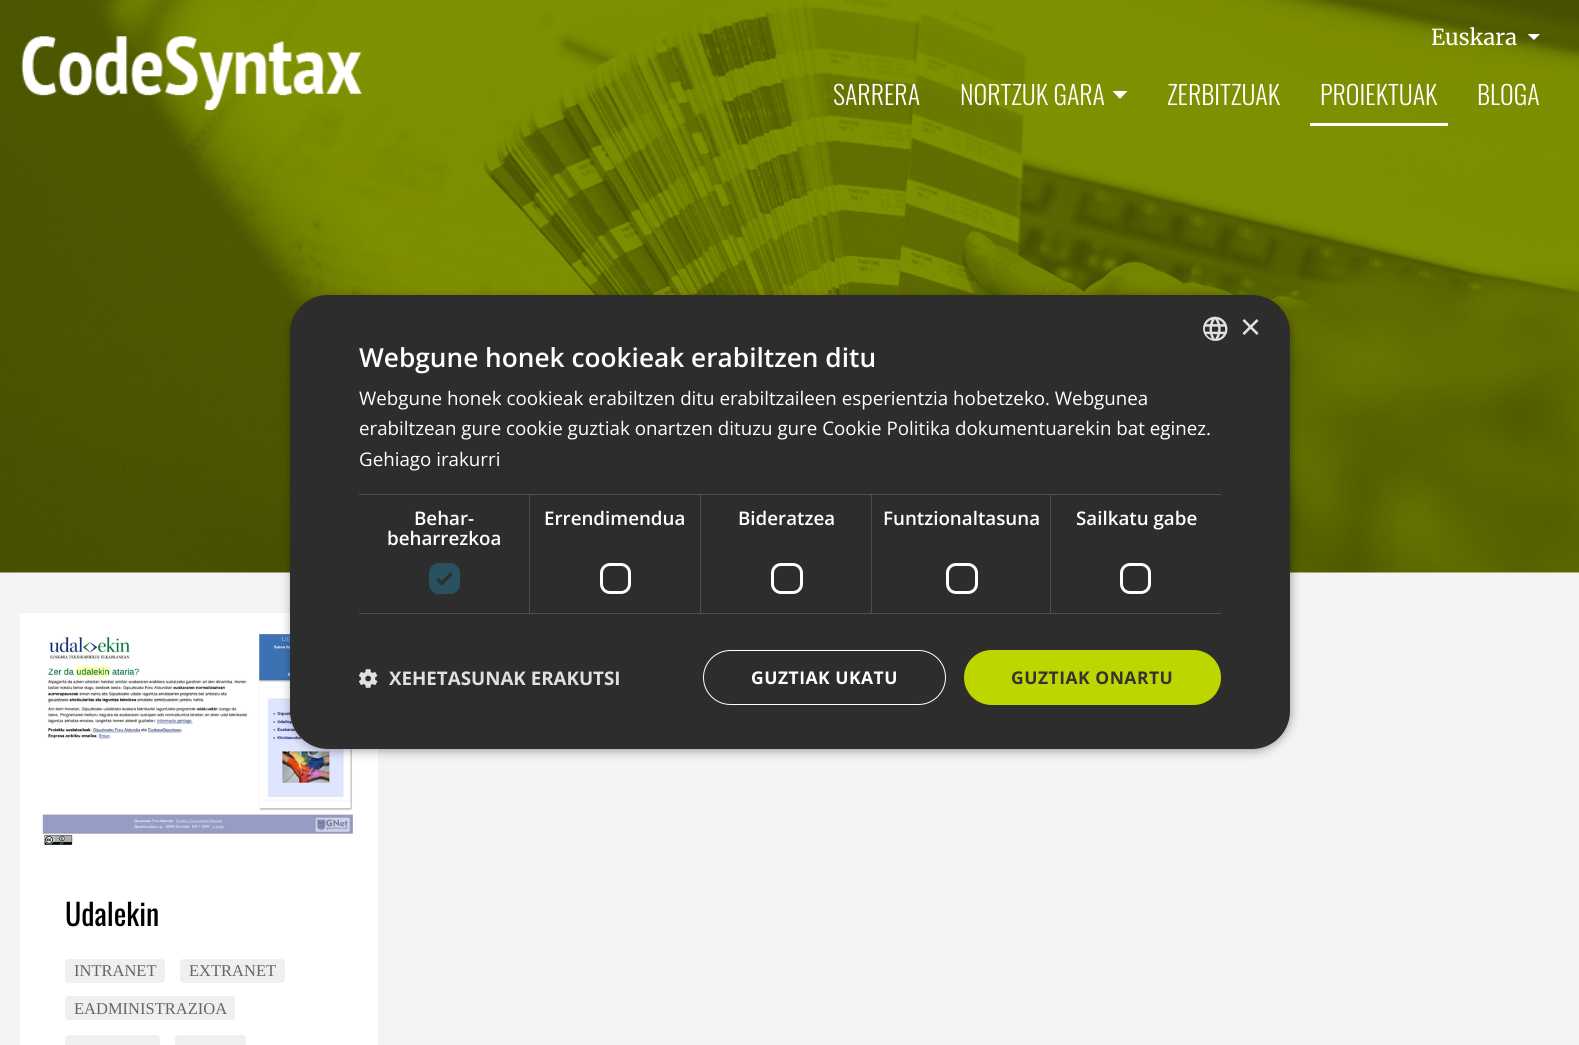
#include <cairo.h>
#include <math.h>
#include <stddef.h>


static void rgb(cairo_t *cr, int r, int g, int b)
{
	cairo_set_source_rgb(cr, r / 255.0, g / 255.0, b / 255.0);
}

static void face(cairo_t *cr, const char *family, double size, int italic, int bold)
{
	cairo_select_font_face(cr, family, italic ? CAIRO_FONT_SLANT_ITALIC : CAIRO_FONT_SLANT_NORMAL,
		bold ? CAIRO_FONT_WEIGHT_BOLD : CAIRO_FONT_WEIGHT_NORMAL);
	cairo_set_font_size(cr, size);
}

static void label(cairo_t *cr, double x, double y, const char *s)
{
	cairo_move_to(cr, x, y);
	cairo_show_text(cr, s);
}

static void tracked(cairo_t *cr, double x, double y, const char *s, double letter, double word)
{
	cairo_move_to(cr, x, y);
	while (*s) {
		char ch[5] = {0};
		int n = 0;
		do ch[n++] = *s++; while ((*s & 0xC0) == 0x80);
		cairo_show_text(cr, ch);
		cairo_rel_move_to(cr, letter + word * (*ch == ' '), 0);
	}
}

static void rect(cairo_t *cr, double x, double y, double w, double h)
{
	cairo_rectangle(cr, x, y, w, h);
	cairo_fill(cr);
}

static void rrect(cairo_t *cr, double x, double y, double w, double h, double r)
{
	cairo_new_sub_path(cr);
	cairo_arc(cr, x + w - r, y + h - r, r, 0, M_PI / 2);
	cairo_arc(cr, x + r, y + h - r, r, M_PI / 2, M_PI);
	cairo_arc(cr, x + r, y + r, r, M_PI, 1.5 * M_PI);
	cairo_arc(cr, x + w - r, y + r, r, 1.5 * M_PI, 2 * M_PI);
	cairo_close_path(cr);
}

static void soft_shadow(cairo_t *cr, double x, double y, double w, double h, double r, double blur, double alpha)
{
	cairo_push_group_with_content(cr, CAIRO_CONTENT_ALPHA);
	cairo_set_operator(cr, CAIRO_OPERATOR_SOURCE);
	for (int i = 15; i >= -15 && fmin(w, h) + blur * i / 3 > 0; i -= 2) {
		double e = blur * i / 6;
		cairo_set_source_rgba(cr, 0, 0, 0, alpha * erfc((i - 1) / 8.5) / 2);
		rrect(cr, x - e, y - e, w + 2 * e, h + 2 * e, fmax(0, fmin(r + e + blur * .6, fmin(w, h) / 2 + e)));
		cairo_fill(cr);
	}
	cairo_pattern_t *soft = cairo_pop_group(cr);
	cairo_mask(cr, soft);
	cairo_pattern_destroy(soft);
}

static void image(cairo_t *cr, const char *path, double x, double y, double w, double h)
{
	cairo_surface_t *image = cairo_image_surface_create_from_png(path);
	cairo_save(cr);
	cairo_set_source_surface(cr, image, x, y);
	cairo_rectangle(cr, x, y, w, h);
	cairo_fill(cr);
	cairo_restore(cr);
	cairo_surface_destroy(image);
}

static void draw(cairo_t *cr) {
	rgb(cr, 244, 244, 244);
	cairo_paint(cr);
	image(cr, "image3.png", 0, 0, 1579, 573);
	image(cr, "image0.png", 21, 36, 342, 74);
	face(cr, "Merriweather Light", 22, 0, 0);
	rgb(cr, 255, 255, 255);
	label(cr, 1431, 45, "Euskara");
	cairo_new_path(cr);
	cairo_move_to(cr, 1527.5, 34);
	cairo_line_to(cr, 1540, 34);
	cairo_line_to(cr, 1534, 40);
	cairo_close_path(cr);
	cairo_fill(cr);
	face(cr, "Oswald Light", 26, 0, 0);
	label(cr, 833, 105, "SARRERA");
	label(cr, 960, 105, "NORTZUK GARA");
	cairo_new_path(cr);
	cairo_move_to(cr, 1112.5, 91);
	cairo_line_to(cr, 1127.5, 91);
	cairo_line_to(cr, 1120, 99);
	cairo_close_path(cr);
	cairo_fill(cr);
	label(cr, 1167, 105, "ZERBITZUAK");
	rect(cr, 1310, 123, 138, 3);
	label(cr, 1320, 105, "PROIEKTUAK");
	label(cr, 1477, 105, "BLOGA");
	rect(cr, 20, 613, 358, 432);
	image(cr, "image4.png", 42, 634, 311, 212);
	rgb(cr, 0, 0, 0);
	soft_shadow(cr, 291, 298, 1000, 453, 38, 5, 0.35);
	rgb(cr, 45, 45, 45);
	rrect(cr, 290, 295, 1000, 454, 38);
	cairo_fill(cr);
	image(cr, "image1.png", 1203, 316, 25, 25);
	face(cr, "Liberation Sans", 36, 0, 0);
	rgb(cr, 224, 224, 224);
	label(cr, 1240, 339, "×");
	face(cr, "Open Sans SemiBold", 26.25, 0, 0);
	rgb(cr, 255, 255, 255);
	label(cr, 359, 367, "Webgune honek cookieak erabiltzen ditu");
	face(cr, "Open Sans", 18.75, 0, 0);
	label(cr, 359, 405, "Webgune honek cookieak erabiltzen ditu erabiltzaileen esperientzia hobetzeko. Webgunea");
	label(cr, 359, 435, "erabiltzean gure cookie guztiak onartzen dituzu gure Cookie Politika dokumentuarekin bat eginez.");
	label(cr, 359, 466, "Gehiago irakurri");
	rgb(cr, 77, 77, 77);
	rect(cr, 359, 494, 862, 1);
	rect(cr, 529, 494, 1, 120);
	rect(cr, 359, 613, 171, 1);
	face(cr, "Open Sans SemiBold", 18.75, 0, 0);
	rgb(cr, 255, 255, 255);
	label(cr, 414, 525, "Behar-");
	label(cr, 387, 545, "beharrezkoa");
	rgb(cr, 42, 81, 96);
	rrect(cr, 429, 563, 31, 31, 10);
	cairo_fill(cr);
	cairo_new_path(cr);
	cairo_move_to(cr, 437.5, 579);
	cairo_line_to(cr, 441.5, 583.5);
	cairo_line_to(cr, 451.5, 573.5);
	rgb(cr, 45, 45, 45);
	cairo_set_line_width(cr, 3.3);
	cairo_stroke(cr);
	rgb(cr, 77, 77, 77);
	rect(cr, 700, 494, 1, 120);
	rect(cr, 530, 613, 171, 1);
	rgb(cr, 255, 255, 255);
	label(cr, 544, 525, "Errendimendua");
	rrect(cr, 601.5, 564.5, 28, 28, 8.5);
	cairo_set_line_width(cr, 3);
	cairo_stroke(cr);
	rgb(cr, 77, 77, 77);
	rect(cr, 871, 494, 1, 120);
	rect(cr, 701, 613, 172, 1);
	rgb(cr, 255, 255, 255);
	label(cr, 738, 525, "Bideratzea");
	rrect(cr, 772.5, 564.5, 29, 28, 8.5);
	cairo_stroke(cr);
	rgb(cr, 77, 77, 77);
	rect(cr, 1050, 494, 1, 120);
	rect(cr, 873, 613, 348, 1);
	rgb(cr, 255, 255, 255);
	label(cr, 883, 525, "Funtzionaltasuna");
	rrect(cr, 947.5, 564.5, 29, 28, 8.5);
	cairo_stroke(cr);
	label(cr, 1076, 525, "Sailkatu gabe");
	rrect(cr, 1121.5, 564.5, 28, 28, 8.5);
	cairo_stroke(cr);
	image(cr, "image2.png", 359, 669, 19, 19);
	face(cr, "Open Sans", 18.75, 0, 1);
	rgb(cr, 224, 224, 224);
	label(cr, 389, 685, "XEHETASUNAK ERAKUTSI");
	rrect(cr, 703.5, 650.5, 242, 54, 27);
	rgb(cr, 255, 255, 255);
	cairo_set_line_width(cr, 1);
	cairo_stroke(cr);
	face(cr, "Open Sans", 17.5, 0, 1);
	tracked(cr, 751, 684, "GUZTIAK UKATU", 0.5, 0);
	rgb(cr, 190, 214, 0);
	rrect(cr, 964, 650, 257, 55, 27.5);
	cairo_fill(cr);
	rgb(cr, 51, 51, 51);
	tracked(cr, 1011, 684, "GUZTIAK ONARTU", 0.5, 0);
	face(cr, "Oswald", 30, 0, 0);
	rgb(cr, 0, 0, 0);
	label(cr, 65, 926, "Udalekin");
	rgb(cr, 239, 239, 239);
	rrect(cr, 65, 959, 100, 24, 4);
	cairo_fill(cr);
	face(cr, "Liberation Serif", 16.5, 0, 0);
	rgb(cr, 102, 102, 102);
	label(cr, 74, 976, "INTRANET");
	rgb(cr, 239, 239, 239);
	rrect(cr, 180, 959, 105, 24, 4);
	cairo_fill(cr);
	rgb(cr, 102, 102, 102);
	label(cr, 189, 976, "EXTRANET");
	rgb(cr, 239, 239, 239);
	rrect(cr, 65, 996, 170, 24, 4);
	cairo_fill(cr);
	rgb(cr, 102, 102, 102);
	label(cr, 74, 1014, "EADMINISTRAZIOA");
	rgb(cr, 239, 239, 239);
	rrect(cr, 65, 1035, 95, 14, 4);
	cairo_fill(cr);
	rrect(cr, 175, 1035, 71, 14, 4);
	cairo_fill(cr);
}

int main(void) {
	cairo_surface_t *surface = cairo_image_surface_create(CAIRO_FORMAT_RGB24, 1579, 1045);
	cairo_t *cr = cairo_create(surface);
	cairo_font_options_t *options = cairo_font_options_create();
	cairo_font_options_set_hint_metrics(options, CAIRO_HINT_METRICS_OFF);
	cairo_font_options_set_hint_style(options, CAIRO_HINT_STYLE_NONE);
	cairo_set_font_options(cr, options);
	cairo_set_miter_limit(cr, 4);
	draw(cr);
	cairo_surface_write_to_png(surface, "render.png");
	cairo_font_options_destroy(options);
	cairo_destroy(cr);
	cairo_surface_destroy(surface);
	return 0;
}
